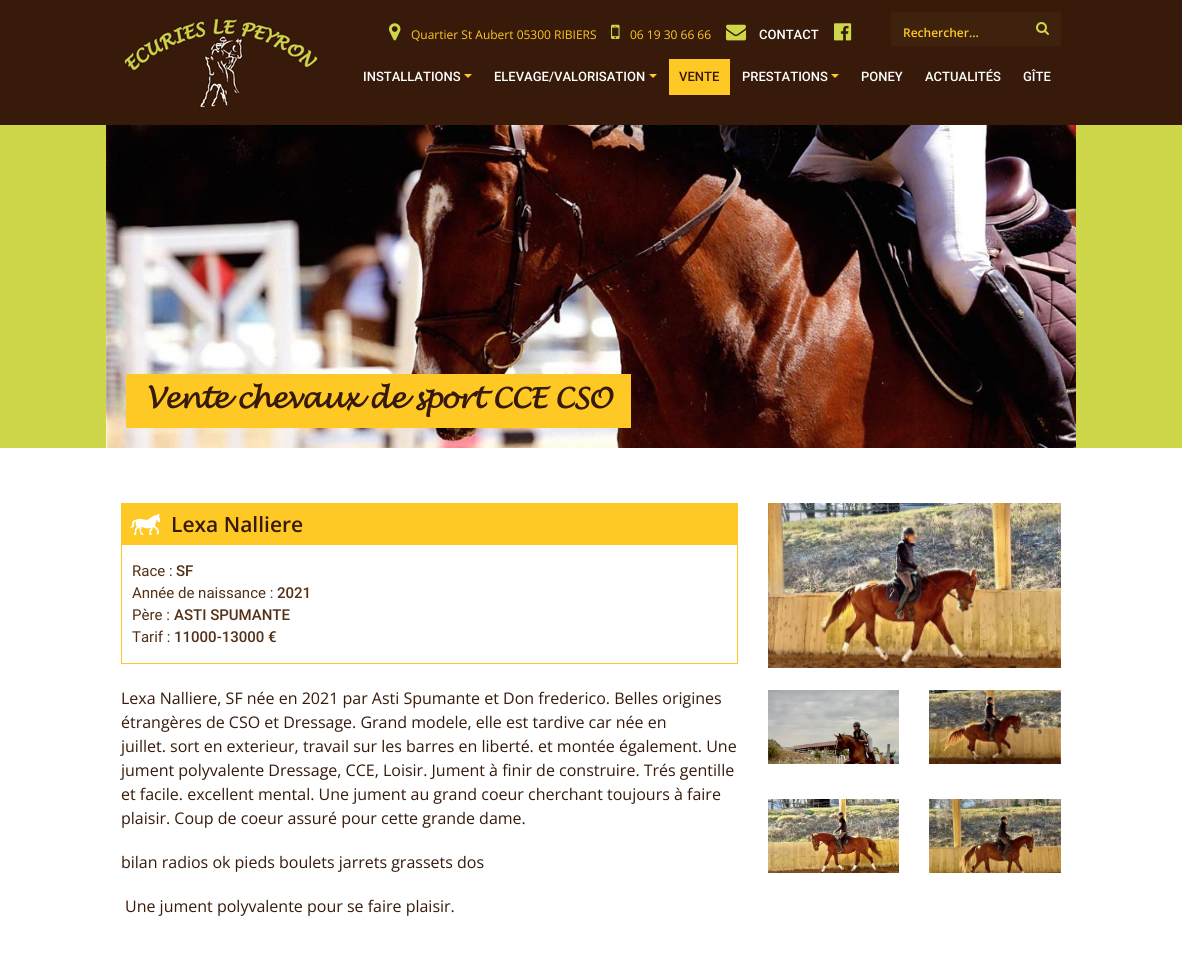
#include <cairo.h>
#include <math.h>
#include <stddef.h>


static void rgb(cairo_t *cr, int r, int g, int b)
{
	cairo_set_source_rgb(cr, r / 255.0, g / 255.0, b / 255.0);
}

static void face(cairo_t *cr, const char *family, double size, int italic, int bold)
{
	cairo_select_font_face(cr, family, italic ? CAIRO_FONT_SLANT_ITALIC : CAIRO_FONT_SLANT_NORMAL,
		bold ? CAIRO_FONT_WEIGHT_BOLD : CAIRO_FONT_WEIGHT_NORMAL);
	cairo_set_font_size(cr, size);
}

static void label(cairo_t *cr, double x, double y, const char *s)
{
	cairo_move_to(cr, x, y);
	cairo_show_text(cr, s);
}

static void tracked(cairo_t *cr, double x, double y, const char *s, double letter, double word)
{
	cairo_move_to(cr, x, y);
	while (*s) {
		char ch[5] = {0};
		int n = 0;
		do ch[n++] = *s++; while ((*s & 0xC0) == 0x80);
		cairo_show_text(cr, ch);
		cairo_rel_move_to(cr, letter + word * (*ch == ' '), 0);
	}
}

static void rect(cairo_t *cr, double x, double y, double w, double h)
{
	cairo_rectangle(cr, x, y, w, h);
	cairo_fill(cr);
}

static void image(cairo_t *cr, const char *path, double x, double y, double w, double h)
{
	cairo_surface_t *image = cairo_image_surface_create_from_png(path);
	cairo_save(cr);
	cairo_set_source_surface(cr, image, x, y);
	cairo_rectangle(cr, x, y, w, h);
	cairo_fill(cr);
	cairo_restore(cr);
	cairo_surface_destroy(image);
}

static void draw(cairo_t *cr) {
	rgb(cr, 255, 255, 255);
	cairo_paint(cr);
	rgb(cr, 55, 26, 10);
	rect(cr, 0, 0, 1182, 125);
	image(cr, "image0.png", 123, 18, 196, 90);
	image(cr, "image1.png", 389, 23, 12, 18);
	face(cr, "Open Sans", 12, 0, 0);
	rgb(cr, 254, 200, 37);
	label(cr, 411, 39, "Quartier St Aubert 05300 RIBIERS");
	image(cr, "image2.png", 611, 24, 9, 15);
	label(cr, 630, 39, "06 19 30 66 66");
	image(cr, "image3.png", 726, 24, 20, 17);
	face(cr, "Roboto Medium", 13, 0, 0);
	rgb(cr, 255, 255, 255);
	label(cr, 759, 39, "CONTACT");
	image(cr, "image4.png", 834, 23, 18, 18);
	rgb(cr, 62, 34, 13);
	rect(cr, 891, 13, 170, 33);
	rgb(cr, 57, 31, 12);
	rect(cr, 891, 12, 170, 1);
	face(cr, "Open Sans SemiBold", 12, 0, 0);
	rgb(cr, 254, 200, 37);
	label(cr, 903, 37, "Rechercher...");
	image(cr, "image5.png", 1036, 22, 13, 13);
	face(cr, "Roboto Medium", 13, 0, 0);
	rgb(cr, 255, 255, 255);
	label(cr, 363, 81, "INSTALLATIONS");
	rgb(cr, 254, 200, 37);
	cairo_new_path(cr);
	cairo_move_to(cr, 464, 74);
	cairo_line_to(cr, 472, 74);
	cairo_line_to(cr, 468, 78);
	cairo_close_path(cr);
	cairo_fill(cr);
	rgb(cr, 255, 255, 255);
	label(cr, 494, 81, "ELEVAGE/VALORISATION");
	rgb(cr, 254, 200, 37);
	cairo_new_path(cr);
	cairo_move_to(cr, 649, 74);
	cairo_line_to(cr, 657, 74);
	cairo_line_to(cr, 653, 78);
	cairo_close_path(cr);
	cairo_fill(cr);
	rect(cr, 669, 59, 61, 36);
	rgb(cr, 55, 26, 10);
	label(cr, 679, 81, "VENTE");
	rgb(cr, 255, 255, 255);
	label(cr, 742, 81, "PRESTATIONS");
	rgb(cr, 254, 200, 37);
	cairo_new_path(cr);
	cairo_move_to(cr, 831, 74);
	cairo_line_to(cr, 839, 74);
	cairo_line_to(cr, 835, 78);
	cairo_close_path(cr);
	cairo_fill(cr);
	rgb(cr, 255, 255, 255);
	label(cr, 861, 81, "PONEY");
	label(cr, 925, 81, "ACTUALITÉS");
	label(cr, 1023, 81, "GÎTE");
	rgb(cr, 206, 214, 73);
	rect(cr, 0, 125, 1182, 323);
	image(cr, "image6.png", 106, 125, 970, 323);
	rgb(cr, 254, 200, 37);
	rect(cr, 126, 374, 505, 54);
	face(cr, "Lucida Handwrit", 28, 0, 1);
	rgb(cr, 55, 26, 10);
	tracked(cr, 146, 408, "Vente chevaux de sport CCE CSO", -1, 0);
	rgb(cr, 254, 200, 37);
	rect(cr, 121, 503, 617, 42);
	image(cr, "image7.png", 130, 514, 30, 21);
	face(cr, "Open Sans SemiBold", 21, 0, 0);
	rgb(cr, 55, 26, 10);
	label(cr, 171, 532, "Lexa Nalliere");
	rgb(cr, 254, 200, 37);
	rect(cr, 737, 545, 1, 119);
	rect(cr, 121, 663, 617, 1);
	rect(cr, 121, 545, 1, 119);
	face(cr, "Roboto", 15, 0, 0);
	rgb(cr, 83, 48, 22);
	label(cr, 132, 576, "Race :");
	face(cr, "Roboto Medium", 15, 0, 0);
	label(cr, 176, 576, "SF");
	face(cr, "Roboto", 15, 0, 0);
	label(cr, 132, 598, "Année de naissance :");
	face(cr, "Roboto Medium", 15, 0, 0);
	label(cr, 277, 598, "2021");
	face(cr, "Roboto", 15, 0, 0);
	label(cr, 132, 620, "Père :");
	face(cr, "Roboto Medium", 15, 0, 0);
	label(cr, 174, 620, "ASTI SPUMANTE");
	face(cr, "Roboto", 15, 0, 0);
	label(cr, 132, 642, "Tarif :");
	face(cr, "Roboto Medium", 15, 0, 0);
	label(cr, 174, 642, "11000-13000 €");
	face(cr, "Open Sans", 16, 0, 0);
	rgb(cr, 55, 26, 10);
	label(cr, 121, 704, "Lexa Nalliere, SF née en 2021 par Asti Spumante et Don frederico. Belles origines");
	label(cr, 121, 728, "étrangères de CSO et Dressage. Grand modele, elle est tardive car née en");
	label(cr, 121, 752, "juillet. sort en exterieur, travail sur les barres en liberté. et montée également. Une");
	label(cr, 121, 776, "jument polyvalente Dressage, CCE, Loisir. Jument à finir de construire. Trés gentille");
	label(cr, 121, 800, "et facile. excellent mental. Une jument au grand coeur cherchant toujours à faire");
	label(cr, 121, 824, "plaisir. Coup de coeur assuré pour cette grande dame.");
	label(cr, 121, 868, "bilan radios ok pieds boulets jarrets grassets dos");
	label(cr, 125, 912, "Une jument polyvalente pour se faire plaisir.");
	image(cr, "image8.png", 768, 503, 293, 165);
	image(cr, "image9.png", 768, 690, 131, 74);
	image(cr, "image10.png", 929, 690, 132, 74);
	image(cr, "image11.png", 768, 799, 131, 74);
	image(cr, "image12.png", 929, 799, 132, 74);
}

int main(void) {
	cairo_surface_t *surface = cairo_image_surface_create(CAIRO_FORMAT_RGB24, 1182, 955);
	cairo_t *cr = cairo_create(surface);
	cairo_font_options_t *options = cairo_font_options_create();
	cairo_font_options_set_hint_metrics(options, CAIRO_HINT_METRICS_OFF);
	cairo_font_options_set_hint_style(options, CAIRO_HINT_STYLE_NONE);
	cairo_set_font_options(cr, options);
	cairo_set_miter_limit(cr, 4);
	draw(cr);
	cairo_surface_write_to_png(surface, "render.png");
	cairo_font_options_destroy(options);
	cairo_destroy(cr);
	cairo_surface_destroy(surface);
	return 0;
}
